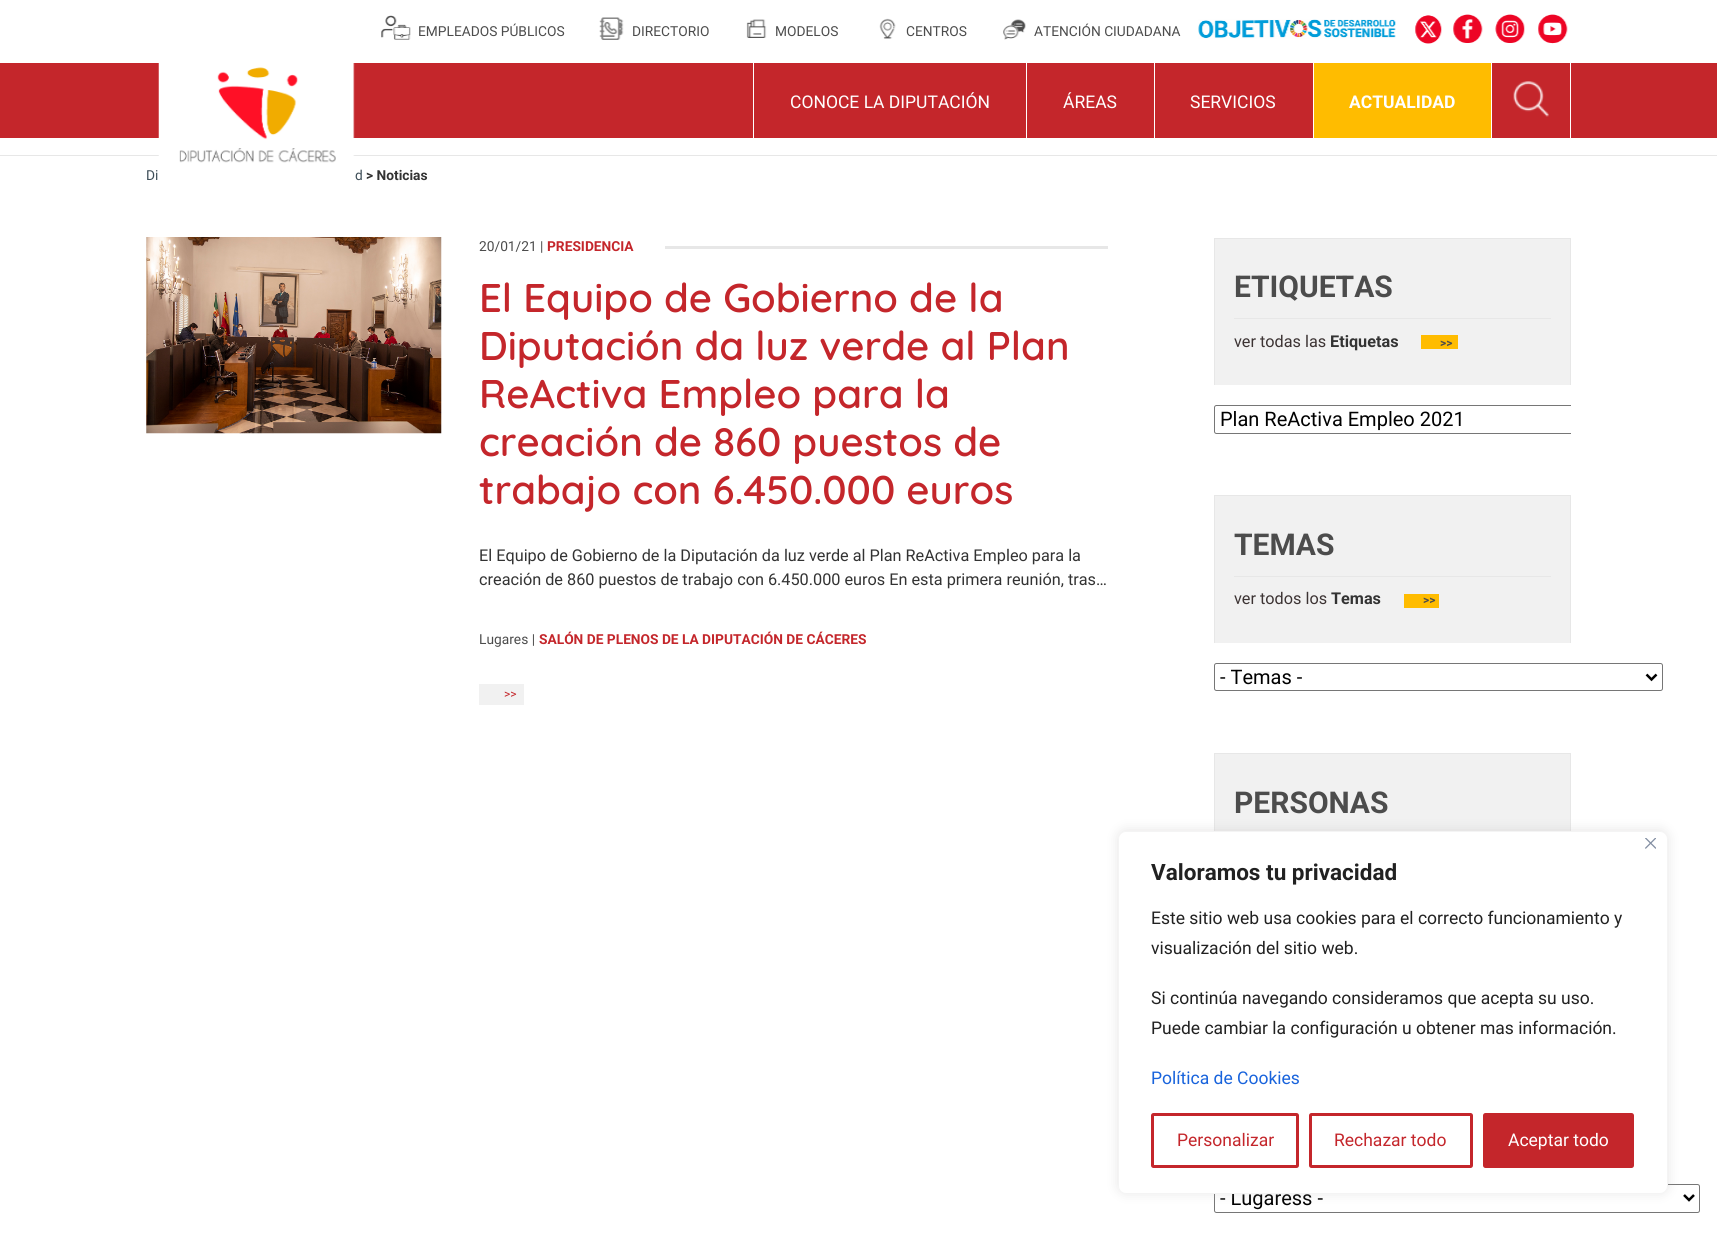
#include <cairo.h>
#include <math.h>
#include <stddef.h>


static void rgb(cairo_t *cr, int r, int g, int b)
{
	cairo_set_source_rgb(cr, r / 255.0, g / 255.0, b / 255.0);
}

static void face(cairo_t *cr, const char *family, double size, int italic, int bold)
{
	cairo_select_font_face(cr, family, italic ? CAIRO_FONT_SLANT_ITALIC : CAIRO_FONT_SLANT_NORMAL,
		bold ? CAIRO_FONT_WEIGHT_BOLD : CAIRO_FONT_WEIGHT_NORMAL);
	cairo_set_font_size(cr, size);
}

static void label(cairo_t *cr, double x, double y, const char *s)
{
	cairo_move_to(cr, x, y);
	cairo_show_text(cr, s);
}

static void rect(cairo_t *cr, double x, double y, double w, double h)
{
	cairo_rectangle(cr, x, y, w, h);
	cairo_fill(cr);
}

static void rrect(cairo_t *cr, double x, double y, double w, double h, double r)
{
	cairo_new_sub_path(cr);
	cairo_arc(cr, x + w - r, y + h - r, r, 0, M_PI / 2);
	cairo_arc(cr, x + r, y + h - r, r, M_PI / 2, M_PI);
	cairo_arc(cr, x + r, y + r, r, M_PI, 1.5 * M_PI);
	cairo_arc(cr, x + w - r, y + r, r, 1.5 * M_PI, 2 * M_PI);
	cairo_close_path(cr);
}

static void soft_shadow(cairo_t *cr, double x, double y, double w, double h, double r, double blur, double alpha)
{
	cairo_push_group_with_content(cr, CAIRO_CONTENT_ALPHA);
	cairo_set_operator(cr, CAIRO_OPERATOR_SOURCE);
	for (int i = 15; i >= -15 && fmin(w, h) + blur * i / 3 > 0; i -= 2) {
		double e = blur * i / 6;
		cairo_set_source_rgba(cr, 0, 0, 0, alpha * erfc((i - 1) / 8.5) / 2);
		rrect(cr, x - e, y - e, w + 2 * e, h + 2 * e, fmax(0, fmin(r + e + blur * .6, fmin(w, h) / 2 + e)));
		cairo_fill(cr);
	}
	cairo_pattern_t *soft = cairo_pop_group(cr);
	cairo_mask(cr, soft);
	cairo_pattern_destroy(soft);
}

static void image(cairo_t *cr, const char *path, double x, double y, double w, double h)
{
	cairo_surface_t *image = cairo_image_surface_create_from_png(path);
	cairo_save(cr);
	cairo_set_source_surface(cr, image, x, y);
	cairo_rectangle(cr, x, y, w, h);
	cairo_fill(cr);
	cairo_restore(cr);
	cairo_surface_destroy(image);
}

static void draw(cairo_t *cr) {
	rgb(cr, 255, 255, 255);
	cairo_paint(cr);
	rgb(cr, 196, 38, 43);
	rect(cr, 0, 63, 1717, 75);
	image(cr, "image0.png", 381, 15, 30, 25);
	face(cr, "Roboto", 13.75, 0, 0);
	rgb(cr, 76, 76, 76);
	label(cr, 418, 36, "EMPLEADOS PÚBLICOS");
	image(cr, "image1.png", 599, 17, 25, 23);
	label(cr, 632, 36, "DIRECTORIO");
	image(cr, "image2.png", 746, 19, 21, 19);
	label(cr, 775, 36, "MODELOS");
	image(cr, "image3.png", 879, 18, 17, 21);
	label(cr, 906, 36, "CENTROS");
	image(cr, "image4.png", 1003, 19, 23, 21);
	label(cr, 1034, 36, "ATENCIÓN CIUDADANA");
	image(cr, "image5.png", 1198, 19, 198, 20);
	image(cr, "image6.png", 1415, 15, 27, 29);
	image(cr, "image7.png", 1453, 14, 30, 29);
	image(cr, "image8.png", 1495, 14, 30, 29);
	image(cr, "image9.png", 1538, 14, 30, 30);
	rgb(cr, 231, 231, 231);
	rect(cr, 0, 155, 1717, 1);
	image(cr, "image10.png", 158, 63, 197, 120);
	rgb(cr, 255, 255, 255);
	rect(cr, 753, 63, 1, 75);
	face(cr, "Roboto", 17.5, 0, 0);
	label(cr, 790, 108, "CONOCE LA DIPUTACIÓN");
	rect(cr, 1026, 63, 1, 75);
	label(cr, 1063, 108, "ÁREAS");
	rect(cr, 1154, 63, 1, 75);
	label(cr, 1190, 108, "SERVICIOS");
	rgb(cr, 255, 188, 0);
	rect(cr, 1314, 63, 177, 75);
	rgb(cr, 255, 255, 255);
	rect(cr, 1313, 63, 1, 75);
	face(cr, "Roboto", 17.5, 0, 1);
	label(cr, 1349, 108, "ACTUALIDAD");
	rect(cr, 1570, 63, 1, 75);
	rect(cr, 1491, 63, 1, 75);
	image(cr, "image11.png", 1513, 81, 36, 36);
	face(cr, "Roboto", 13.75, 0, 0);
	rgb(cr, 62, 78, 88);
	label(cr, 146, 180, "Di");
	label(cr, 355, 180, "d");
	face(cr, "Roboto", 13.75, 0, 1);
	rgb(cr, 51, 51, 51);
	label(cr, 366, 180, "> Noticias");
	image(cr, "image12.png", 146, 237, 296, 197);
	face(cr, "Roboto", 13.75, 0, 0);
	rgb(cr, 76, 76, 76);
	label(cr, 479, 251, "20/01/21 |");
	face(cr, "Roboto", 13.75, 0, 1);
	rgb(cr, 196, 38, 43);
	label(cr, 547, 251, "PRESIDENCIA");
	rgb(cr, 231, 231, 231);
	rect(cr, 665, 246, 443, 3);
	face(cr, "Quicksand SemiBold", 40, 0, 0);
	rgb(cr, 196, 38, 43);
	label(cr, 479, 312, "El Equipo de Gobierno de la");
	label(cr, 479, 360, "Diputación da luz verde al Plan");
	label(cr, 479, 408, "ReActiva Empleo para la");
	label(cr, 479, 456, "creación de 860 puestos de");
	label(cr, 479, 504, "trabajo con 6.450.000 euros");
	face(cr, "Roboto", 16.25, 0, 0);
	rgb(cr, 51, 51, 51);
	label(cr, 479, 561, "El Equipo de Gobierno de la Diputación da luz verde al Plan ReActiva Empleo para la");
	label(cr, 479, 585, "creación de 860 puestos de trabajo con 6.450.000 euros En esta primera reunión, tras…");
	face(cr, "Roboto", 13.75, 0, 0);
	rgb(cr, 76, 76, 76);
	label(cr, 479, 644, "Lugares |");
	face(cr, "Roboto", 13.75, 0, 1);
	rgb(cr, 196, 38, 43);
	label(cr, 539, 644, "SALÓN DE PLENOS DE LA DIPUTACIÓN DE CÁCERES");
	rgb(cr, 241, 241, 241);
	rect(cr, 479, 684, 45, 21);
	face(cr, "Roboto", 12, 0, 0);
	rgb(cr, 196, 38, 43);
	label(cr, 504, 698, ">>");
	rgb(cr, 241, 241, 241);
	rect(cr, 1215, 239, 355, 146);
	rgb(cr, 231, 231, 231);
	rect(cr, 1214, 238, 357, 1);
	rect(cr, 1570, 238, 1, 147);
	rect(cr, 1214, 238, 1, 147);
	rect(cr, 1234, 318, 317, 1);
	face(cr, "Roboto", 30, 0, 1);
	rgb(cr, 76, 76, 76);
	label(cr, 1234, 297, "ETIQUETAS");
	face(cr, "Roboto", 16.25, 0, 0);
	rgb(cr, 60, 51, 51);
	label(cr, 1234, 347, "ver todas las");
	face(cr, "Roboto", 16.25, 0, 1);
	rgb(cr, 51, 51, 51);
	label(cr, 1330, 347, "Etiquetas");
	rgb(cr, 255, 188, 0);
	rect(cr, 1421, 335, 37, 14);
	face(cr, "Roboto", 12, 0, 1);
	rgb(cr, 76, 76, 76);
	label(cr, 1440, 347, ">>");
	cairo_save(cr);
	cairo_rectangle(cr, 1214, 385, 357, 50);
	cairo_clip(cr);
	rrect(cr, 1214.5, 405.5, 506, 28, 2);
	rgb(cr, 118, 118, 118);
	cairo_set_line_width(cr, 1);
	cairo_stroke(cr);
	cairo_restore(cr);
	face(cr, "Roboto", 20, 0, 0);
	rgb(cr, 0, 0, 0);
	label(cr, 1220, 426, "Plan ReActiva Empleo 2021");
	rgb(cr, 241, 241, 241);
	rect(cr, 1215, 496, 355, 147);
	rgb(cr, 231, 231, 231);
	rect(cr, 1214, 495, 357, 1);
	rect(cr, 1570, 495, 1, 148);
	rect(cr, 1214, 495, 1, 148);
	rect(cr, 1234, 576, 317, 1);
	face(cr, "Roboto", 30, 0, 1);
	rgb(cr, 76, 76, 76);
	label(cr, 1234, 555, "TEMAS");
	face(cr, "Roboto", 16.25, 0, 0);
	rgb(cr, 60, 51, 51);
	label(cr, 1234, 604, "ver todos los");
	face(cr, "Roboto", 16.25, 0, 1);
	rgb(cr, 51, 51, 51);
	label(cr, 1331, 604, "Temas");
	rgb(cr, 255, 188, 0);
	rect(cr, 1404, 594, 35, 14);
	face(cr, "Roboto", 12, 0, 1);
	rgb(cr, 76, 76, 76);
	label(cr, 1423, 604, ">>");
	rrect(cr, 1214.5, 663.5, 448, 27, 2);
	rgb(cr, 118, 118, 118);
	cairo_set_line_width(cr, 1);
	cairo_stroke(cr);
	cairo_new_path(cr);
	cairo_move_to(cr, 1646.5, 674.5);
	cairo_line_to(cr, 1651.5, 679.5);
	cairo_line_to(cr, 1656.5, 674.5);
	rgb(cr, 0, 0, 0);
	cairo_set_line_width(cr, 2.5);
	cairo_stroke(cr);
	face(cr, "Roboto", 20, 0, 0);
	label(cr, 1220, 684, "- Temas -");
	rgb(cr, 241, 241, 241);
	rect(cr, 1215, 754, 355, 77);
	rgb(cr, 231, 231, 231);
	rect(cr, 1214, 753, 357, 1);
	rect(cr, 1570, 753, 1, 78);
	rect(cr, 1214, 753, 1, 78);
	face(cr, "Roboto", 30, 0, 1);
	rgb(cr, 76, 76, 76);
	label(cr, 1234, 813, "PERSONAS");
	rrect(cr, 1214.5, 1184.5, 485, 28, 2);
	rgb(cr, 118, 118, 118);
	cairo_set_line_width(cr, 1);
	cairo_stroke(cr);
	cairo_new_path(cr);
	cairo_move_to(cr, 1684, 1195);
	cairo_line_to(cr, 1689, 1200);
	cairo_line_to(cr, 1694, 1195);
	rgb(cr, 0, 0, 0);
	cairo_set_line_width(cr, 2.5);
	cairo_stroke(cr);
	face(cr, "Roboto", 20, 0, 0);
	label(cr, 1220, 1205, "- Lugaress -");
	rgb(cr, 172, 171, 171);
	soft_shadow(cr, 1118, 830, 550, 363, 8, 6, 0.3);
	rgb(cr, 255, 255, 255);
	rrect(cr, 1118.5, 831.5, 549, 362, 7.5);
	cairo_fill_preserve(cr);
	rgb(cr, 244, 244, 244);
	cairo_set_line_width(cr, 1);
	cairo_stroke(cr);
	image(cr, "image13.png", 1645, 838, 11, 11);
	face(cr, "Roboto", 22.5, 0, 1);
	rgb(cr, 33, 33, 33);
	label(cr, 1151, 880, "Valoramos tu privacidad");
	face(cr, "Roboto", 17.5, 0, 0);
	label(cr, 1151, 924, "Este sitio web usa cookies para el correcto funcionamiento y");
	label(cr, 1151, 954, "visualización del sitio web.");
	label(cr, 1151, 1004, "Si continúa navegando consideramos que acepta su uso.");
	label(cr, 1151, 1034, "Puede cambiar la configuración u obtener mas información.");
	rgb(cr, 24, 99, 220);
	label(cr, 1151, 1084, "Política de Cookies");
	rrect(cr, 1152.5, 1114.5, 145, 52, 1);
	rgb(cr, 196, 38, 43);
	cairo_set_line_width(cr, 3);
	cairo_stroke(cr);
	label(cr, 1177, 1146, "Personalizar");
	rrect(cr, 1310.5, 1114.5, 161, 52, 1);
	cairo_stroke(cr);
	label(cr, 1334, 1146, "Rechazar todo");
	rrect(cr, 1484.5, 1114.5, 148, 52, 1);
	cairo_fill_preserve(cr);
	cairo_stroke(cr);
	rgb(cr, 255, 255, 255);
	label(cr, 1508, 1146, "Aceptar todo");
}

int main(void) {
	cairo_surface_t *surface = cairo_image_surface_create(CAIRO_FORMAT_RGB24, 1717, 1243);
	cairo_t *cr = cairo_create(surface);
	cairo_font_options_t *options = cairo_font_options_create();
	cairo_font_options_set_hint_metrics(options, CAIRO_HINT_METRICS_OFF);
	cairo_font_options_set_hint_style(options, CAIRO_HINT_STYLE_NONE);
	cairo_set_font_options(cr, options);
	cairo_set_miter_limit(cr, 4);
	draw(cr);
	cairo_surface_write_to_png(surface, "render.png");
	cairo_font_options_destroy(options);
	cairo_destroy(cr);
	cairo_surface_destroy(surface);
	return 0;
}
